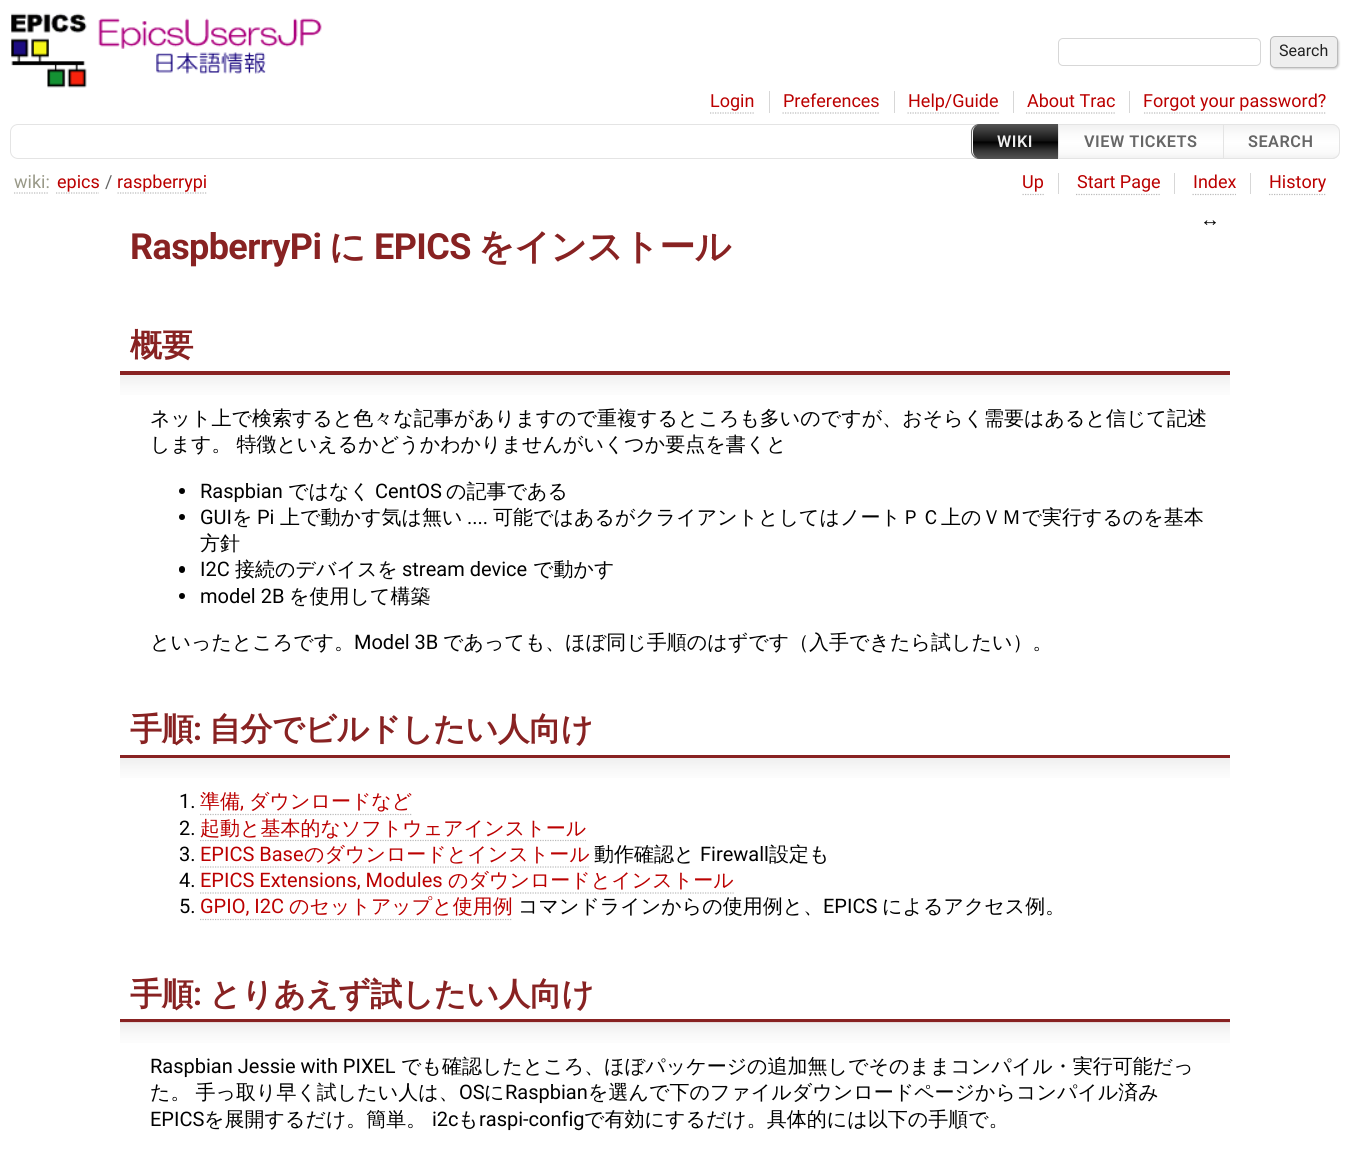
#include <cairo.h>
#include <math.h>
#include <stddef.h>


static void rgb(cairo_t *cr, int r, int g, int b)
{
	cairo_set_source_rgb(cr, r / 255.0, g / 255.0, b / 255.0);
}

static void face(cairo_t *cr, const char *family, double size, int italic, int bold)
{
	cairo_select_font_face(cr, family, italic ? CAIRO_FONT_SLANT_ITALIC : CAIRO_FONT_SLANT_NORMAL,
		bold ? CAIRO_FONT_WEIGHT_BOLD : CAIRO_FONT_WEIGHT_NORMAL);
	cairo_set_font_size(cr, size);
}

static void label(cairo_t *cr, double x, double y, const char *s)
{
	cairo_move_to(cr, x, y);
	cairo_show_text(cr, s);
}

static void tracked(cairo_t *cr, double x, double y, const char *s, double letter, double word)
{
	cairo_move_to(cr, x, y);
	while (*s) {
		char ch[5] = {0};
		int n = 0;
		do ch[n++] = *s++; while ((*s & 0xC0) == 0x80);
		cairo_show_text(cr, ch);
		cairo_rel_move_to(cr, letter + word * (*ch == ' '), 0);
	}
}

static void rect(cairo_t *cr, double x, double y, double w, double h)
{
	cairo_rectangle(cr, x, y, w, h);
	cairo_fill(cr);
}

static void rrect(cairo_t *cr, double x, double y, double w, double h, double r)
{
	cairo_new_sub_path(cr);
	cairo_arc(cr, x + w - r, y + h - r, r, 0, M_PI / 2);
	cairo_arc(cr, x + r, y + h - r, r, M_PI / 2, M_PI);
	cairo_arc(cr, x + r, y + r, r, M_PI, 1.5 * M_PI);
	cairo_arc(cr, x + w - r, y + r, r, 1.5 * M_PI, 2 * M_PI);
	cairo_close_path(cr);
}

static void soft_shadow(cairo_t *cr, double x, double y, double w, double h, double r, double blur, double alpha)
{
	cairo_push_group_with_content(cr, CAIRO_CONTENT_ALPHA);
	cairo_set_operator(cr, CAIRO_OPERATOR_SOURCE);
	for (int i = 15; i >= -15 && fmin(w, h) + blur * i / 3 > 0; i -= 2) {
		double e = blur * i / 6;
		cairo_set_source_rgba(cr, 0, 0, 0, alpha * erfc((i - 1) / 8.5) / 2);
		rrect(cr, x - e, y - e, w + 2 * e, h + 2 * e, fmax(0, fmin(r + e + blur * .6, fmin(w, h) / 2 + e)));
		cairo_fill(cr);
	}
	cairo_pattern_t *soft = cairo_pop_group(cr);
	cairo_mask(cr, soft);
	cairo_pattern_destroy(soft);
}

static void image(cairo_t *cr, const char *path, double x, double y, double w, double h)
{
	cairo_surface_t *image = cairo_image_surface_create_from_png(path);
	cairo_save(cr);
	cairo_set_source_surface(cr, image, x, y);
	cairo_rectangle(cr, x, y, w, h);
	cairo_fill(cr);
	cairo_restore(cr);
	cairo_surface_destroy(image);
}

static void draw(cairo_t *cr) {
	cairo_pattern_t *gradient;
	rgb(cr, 255, 255, 255);
	cairo_paint(cr);
	image(cr, "image0.png", 11, 13, 311, 75);
	rrect(cr, 1058.5, 38.5, 202, 27, 4.5);
	rgb(cr, 215, 215, 215);
	cairo_set_line_width(cr, 1);
	cairo_stroke(cr);
	rgb(cr, 204, 204, 204);
	soft_shadow(cr, 1271, 38, 68, 31, 5, 1, 1);
	rgb(cr, 238, 238, 238);
	rrect(cr, 1270.5, 36.5, 67, 31, 4.5);
	cairo_fill_preserve(cr);
	rgb(cr, 187, 187, 187);
	cairo_stroke(cr);
	face(cr, "Roboto", 16, 0, 0);
	rgb(cr, 34, 34, 34);
	label(cr, 1279, 56, "Search");
	rgb(cr, 215, 215, 215);
	rect(cr, 769, 91, 1, 22);
	face(cr, "Roboto", 18, 0, 0);
	rgb(cr, 187, 0, 0);
	label(cr, 710, 107, "Login");
	cairo_new_path(cr);
	cairo_move_to(cr, 710, 113);
	cairo_line_to(cr, 755, 113);
	rgb(cr, 187, 187, 187);
	cairo_set_line_width(cr, 1.2);
	cairo_set_dash(cr, (double[]){1.25, 1.25}, 2, 0);
	cairo_stroke(cr);
	rgb(cr, 215, 215, 215);
	rect(cr, 894, 91, 1, 22);
	rgb(cr, 187, 0, 0);
	label(cr, 783, 107, "Preferences");
	cairo_new_path(cr);
	cairo_move_to(cr, 782.5, 113);
	cairo_line_to(cr, 880, 113);
	rgb(cr, 187, 187, 187);
	cairo_stroke(cr);
	rgb(cr, 215, 215, 215);
	rect(cr, 1013, 91, 1, 22);
	rgb(cr, 187, 0, 0);
	label(cr, 908, 107, "Help/Guide");
	cairo_new_path(cr);
	cairo_move_to(cr, 907.5, 113);
	cairo_line_to(cr, 999, 113);
	rgb(cr, 187, 187, 187);
	cairo_stroke(cr);
	rgb(cr, 215, 215, 215);
	rect(cr, 1129, 91, 1, 22);
	rgb(cr, 187, 0, 0);
	label(cr, 1027, 107, "About Trac");
	cairo_new_path(cr);
	cairo_move_to(cr, 1026, 113);
	cairo_line_to(cr, 1115, 113);
	rgb(cr, 187, 187, 187);
	cairo_stroke(cr);
	rgb(cr, 187, 0, 0);
	label(cr, 1143, 107, "Forgot your password?");
	cairo_new_path(cr);
	cairo_move_to(cr, 1144, 113);
	cairo_line_to(cr, 1326, 113);
	rgb(cr, 187, 187, 187);
	cairo_stroke(cr);
	rrect(cr, 10.5, 124.5, 1329, 34, 7.5);
	rgb(cr, 228, 228, 228);
	cairo_set_line_width(cr, 1);
	cairo_set_dash(cr, NULL, 0, 0);
	cairo_stroke(cr);
	cairo_save(cr);
	cairo_new_path(cr);
	cairo_move_to(cr, 979, 124);
	cairo_line_to(cr, 1060, 124);
	cairo_line_to(cr, 1060, 159);
	cairo_line_to(cr, 979, 159);
	cairo_curve_to(cr, 974.5, 159, 971, 155.5, 971, 151);
	cairo_line_to(cr, 971, 132);
	cairo_curve_to(cr, 971, 127.5, 974.5, 124, 979, 124);
	cairo_close_path(cr);
	cairo_clip(cr);
	gradient = cairo_pattern_create_linear(1016, 125, 1016, 158);
	cairo_pattern_add_color_stop_rgba(gradient, 0, 0.949, 0.949, 0.949, 1);
	cairo_pattern_add_color_stop_rgba(gradient, 0.25, 0.98, 0.98, 0.98, 1);
	cairo_pattern_add_color_stop_rgba(gradient, 0.49, 0.996, 0.996, 0.996, 1);
	cairo_pattern_add_color_stop_rgba(gradient, 0.51, 1, 1, 1, 1);
	cairo_pattern_add_color_stop_rgba(gradient, 0.85, 0.98, 0.98, 0.98, 1);
	cairo_pattern_add_color_stop_rgba(gradient, 1, 0.949, 0.949, 0.949, 1);
	cairo_set_source(cr, gradient);
	cairo_pattern_destroy(gradient);
	rect(cr, 971, 125, 7, 33);
	cairo_restore(cr);
	cairo_new_path(cr);
	cairo_move_to(cr, 979, 124.5);
	cairo_line_to(cr, 1059.5, 124.5);
	cairo_line_to(cr, 1059.5, 158.5);
	cairo_line_to(cr, 979, 158.5);
	cairo_curve_to(cr, 975, 158.5, 971.5, 155, 971.5, 151);
	cairo_line_to(cr, 971.5, 132);
	cairo_curve_to(cr, 971.5, 128, 975, 124.5, 979, 124.5);
	cairo_close_path(cr);
	rgb(cr, 102, 102, 102);
	cairo_stroke(cr);
	gradient = cairo_pattern_create_linear(1016, 124, 1016, 159);
	cairo_pattern_add_color_stop_rgba(gradient, 0, 0.333, 0.333, 0.333, 1);
	cairo_pattern_add_color_stop_rgba(gradient, 0.25, 0.2, 0.2, 0.2, 1);
	cairo_pattern_add_color_stop_rgba(gradient, 0.49, 0.067, 0.067, 0.067, 1);
	cairo_pattern_add_color_stop_rgba(gradient, 0.51, 0, 0, 0, 1);
	cairo_pattern_add_color_stop_rgba(gradient, 0.75, 0.2, 0.2, 0.2, 1);
	cairo_pattern_add_color_stop_rgba(gradient, 1, 0.333, 0.333, 0.333, 1);
	cairo_set_source(cr, gradient);
	cairo_pattern_destroy(gradient);
	cairo_new_path(cr);
	cairo_move_to(cr, 981, 124);
	cairo_line_to(cr, 1059, 124);
	cairo_line_to(cr, 1059, 159);
	cairo_line_to(cr, 981, 159);
	cairo_curve_to(cr, 976.5, 159, 973, 155.5, 973, 151);
	cairo_line_to(cr, 973, 132);
	cairo_curve_to(cr, 973, 127.5, 976.5, 124, 981, 124);
	cairo_close_path(cr);
	cairo_fill(cr);
	face(cr, "Roboto SemiBold", 16.25, 0, 0);
	rgb(cr, 238, 238, 238);
	tracked(cr, 997, 147, "WIKI", 0.5, 0);
	gradient = cairo_pattern_create_linear(1141, 125, 1141, 158);
	cairo_pattern_add_color_stop_rgba(gradient, 0, 0.949, 0.949, 0.949, 1);
	cairo_pattern_add_color_stop_rgba(gradient, 0.25, 0.98, 0.98, 0.98, 1);
	cairo_pattern_add_color_stop_rgba(gradient, 0.49, 0.996, 0.996, 0.996, 1);
	cairo_pattern_add_color_stop_rgba(gradient, 0.51, 1, 1, 1, 1);
	cairo_pattern_add_color_stop_rgba(gradient, 0.85, 0.98, 0.98, 0.98, 1);
	cairo_pattern_add_color_stop_rgba(gradient, 1, 0.949, 0.949, 0.949, 1);
	cairo_set_source(cr, gradient);
	cairo_pattern_destroy(gradient);
	rect(cr, 1059, 125, 164, 33);
	cairo_rectangle(cr, 1058.5, 124.5, 165, 34);
	rgb(cr, 228, 228, 228);
	cairo_stroke(cr);
	rgb(cr, 102, 102, 102);
	tracked(cr, 1084, 147, "VIEW TICKETS", 0.5, 0);
	cairo_save(cr);
	cairo_new_path(cr);
	cairo_move_to(cr, 1223, 124);
	cairo_line_to(cr, 1332, 124);
	cairo_curve_to(cr, 1336.5, 124, 1340, 127.5, 1340, 132);
	cairo_line_to(cr, 1340, 151);
	cairo_curve_to(cr, 1340, 155.5, 1336.5, 159, 1332, 159);
	cairo_line_to(cr, 1223, 159);
	cairo_close_path(cr);
	cairo_clip(cr);
	gradient = cairo_pattern_create_linear(1281, 125, 1281, 158);
	cairo_pattern_add_color_stop_rgba(gradient, 0, 0.949, 0.949, 0.949, 1);
	cairo_pattern_add_color_stop_rgba(gradient, 0.25, 0.98, 0.98, 0.98, 1);
	cairo_pattern_add_color_stop_rgba(gradient, 0.49, 0.996, 0.996, 0.996, 1);
	cairo_pattern_add_color_stop_rgba(gradient, 0.51, 1, 1, 1, 1);
	cairo_pattern_add_color_stop_rgba(gradient, 0.85, 0.98, 0.98, 0.98, 1);
	cairo_pattern_add_color_stop_rgba(gradient, 1, 0.949, 0.949, 0.949, 1);
	cairo_set_source(cr, gradient);
	cairo_pattern_destroy(gradient);
	rect(cr, 1224, 125, 116, 33);
	cairo_restore(cr);
	cairo_new_path(cr);
	cairo_move_to(cr, 1223.5, 124.5);
	cairo_line_to(cr, 1332, 124.5);
	cairo_curve_to(cr, 1336, 124.5, 1339.5, 128, 1339.5, 132);
	cairo_line_to(cr, 1339.5, 151);
	cairo_curve_to(cr, 1339.5, 155, 1336, 158.5, 1332, 158.5);
	cairo_line_to(cr, 1223.5, 158.5);
	cairo_close_path(cr);
	rgb(cr, 228, 228, 228);
	cairo_stroke(cr);
	rgb(cr, 102, 102, 102);
	tracked(cr, 1248, 147, "SEARCH", 0.5, 0);
	cairo_new_path(cr);
	cairo_move_to(cr, 14, 193);
	cairo_line_to(cr, 49, 193);
	rgb(cr, 187, 187, 187);
	cairo_set_line_width(cr, 1.2);
	cairo_set_dash(cr, (double[]){1.25, 1.25}, 2, 0);
	cairo_stroke(cr);
	face(cr, "Roboto", 18, 0, 0);
	rgb(cr, 153, 153, 136);
	label(cr, 14, 188, "wiki:");
	cairo_new_path(cr);
	cairo_move_to(cr, 56, 193);
	cairo_line_to(cr, 99, 193);
	rgb(cr, 187, 187, 187);
	cairo_stroke(cr);
	rgb(cr, 187, 0, 0);
	label(cr, 57, 188, "epics");
	rgb(cr, 102, 102, 102);
	label(cr, 105, 188, "/");
	cairo_new_path(cr);
	cairo_move_to(cr, 117.5, 193);
	cairo_line_to(cr, 207.5, 193);
	rgb(cr, 187, 187, 187);
	cairo_stroke(cr);
	rgb(cr, 187, 0, 0);
	label(cr, 117, 188, "raspberrypi");
	rgb(cr, 215, 215, 215);
	rect(cr, 1058, 173, 1, 21);
	rgb(cr, 187, 0, 0);
	label(cr, 1022, 188, "Up");
	cairo_new_path(cr);
	cairo_move_to(cr, 1022.5, 194.5);
	cairo_line_to(cr, 1044, 194.5);
	rgb(cr, 187, 187, 187);
	cairo_stroke(cr);
	rgb(cr, 215, 215, 215);
	rect(cr, 1174, 173, 1, 21);
	rgb(cr, 187, 0, 0);
	label(cr, 1077, 188, "Start Page");
	cairo_new_path(cr);
	cairo_move_to(cr, 1076, 194.5);
	cairo_line_to(cr, 1160, 194.5);
	rgb(cr, 187, 187, 187);
	cairo_stroke(cr);
	rgb(cr, 215, 215, 215);
	rect(cr, 1250, 173, 1, 21);
	rgb(cr, 187, 0, 0);
	label(cr, 1193, 188, "Index");
	cairo_new_path(cr);
	cairo_move_to(cr, 1192.5, 194.5);
	cairo_line_to(cr, 1236, 194.5);
	rgb(cr, 187, 187, 187);
	cairo_stroke(cr);
	rgb(cr, 187, 0, 0);
	label(cr, 1269, 188, "History");
	cairo_new_path(cr);
	cairo_move_to(cr, 1269, 194.5);
	cairo_line_to(cr, 1326, 194.5);
	rgb(cr, 187, 187, 187);
	cairo_stroke(cr);
	face(cr, "Liberation Sans", 20, 0, 0);
	rgb(cr, 0, 0, 0);
	label(cr, 1200, 226, "↔");
	face(cr, "Roboto", 36, 0, 1);
	rgb(cr, 136, 34, 34);
	tracked(cr, 130, 259, "RaspberryPi", -0.6, 0);
	face(cr, "WenQuanYi Zen Hei", 36, 0, 1);
	tracked(cr, 329, 259, "に", -0.6, 0);
	face(cr, "Roboto", 36, 0, 1);
	tracked(cr, 374, 259, "EPICS", -0.6, 0);
	face(cr, "WenQuanYi Zen Hei", 36, 0, 1);
	tracked(cr, 478, 259, "をインストール", -0.6, 0);
	gradient = cairo_pattern_create_linear(675, 400, 675, 318);
	cairo_pattern_add_color_stop_rgba(gradient, 0, 1, 1, 1, 1);
	cairo_pattern_add_color_stop_rgba(gradient, 0.16, 0.976, 0.976, 0.976, 1);
	cairo_pattern_add_color_stop_rgba(gradient, 0.31, 0.937, 0.937, 0.937, 1);
	cairo_pattern_add_color_stop_rgba(gradient, 0.31, 0.533, 0.133, 0.133, 1);
	cairo_pattern_add_color_stop_rgba(gradient, 0.35, 0.533, 0.133, 0.133, 1);
	cairo_pattern_add_color_stop_rgba(gradient, 0.35, 1, 1, 1, 1);
	cairo_pattern_add_color_stop_rgba(gradient, 1, 1, 1, 1, 1);
	cairo_set_source(cr, gradient);
	cairo_pattern_destroy(gradient);
	rect(cr, 120, 371, 1110, 24);
	face(cr, "WenQuanYi Zen Hei", 32, 0, 1);
	rgb(cr, 136, 34, 34);
	tracked(cr, 130, 356, "概要", -0.5, 0);
	face(cr, "WenQuanYi Zen Hei Medium", 20, 0, 0);
	rgb(cr, 0, 0, 0);
	label(cr, 150, 425, "ネット上で検索すると色々な記事がありますので重複するところも多いのですが、おそらく需要はあると信じて記述");
	tracked(cr, 150, 451, "します。 特徴といえるかどうかわかりませんがいくつか要点を書くと", 0, -1);
	cairo_new_path(cr);
	cairo_arc(cr, 182, 491, 3, 0, 2 * M_PI);
	cairo_fill(cr);
	face(cr, "Roboto", 20, 0, 0);
	label(cr, 200, 498, "Raspbian");
	face(cr, "WenQuanYi Zen Hei Medium", 20, 0, 0);
	label(cr, 288, 498, "ではなく");
	face(cr, "Roboto", 20, 0, 0);
	label(cr, 375, 498, "CentOS");
	face(cr, "WenQuanYi Zen Hei Medium", 20, 0, 0);
	label(cr, 446, 498, "の記事である");
	cairo_new_path(cr);
	cairo_arc(cr, 182, 517, 3, 0, 2 * M_PI);
	cairo_fill(cr);
	face(cr, "Roboto", 20, 0, 0);
	label(cr, 200, 524, "GUI");
	face(cr, "WenQuanYi Zen Hei Medium", 20, 0, 0);
	label(cr, 232, 524, "を");
	face(cr, "Roboto", 20, 0, 0);
	label(cr, 257, 524, "Pi");
	face(cr, "WenQuanYi Zen Hei Medium", 20, 0, 0);
	label(cr, 280, 524, "上で動かす気は無い");
	label(cr, 493, 524, "可能ではあるがクライアントとしてはノートＰＣ上のＶＭで実行するのを基本");
	face(cr, "Roboto", 20, 0, 0);
	label(cr, 467, 524, "....");
	face(cr, "WenQuanYi Zen Hei Medium", 20, 0, 0);
	label(cr, 200, 550, "方針");
	rrect(cr, 179, 566, 6, 7, 3);
	cairo_fill(cr);
	face(cr, "Roboto", 20, 0, 0);
	label(cr, 200, 576, "I2C");
	face(cr, "WenQuanYi Zen Hei Medium", 20, 0, 0);
	label(cr, 235, 576, "接続のデバイスを");
	face(cr, "Roboto", 20, 0, 0);
	label(cr, 402, 576, "stream device");
	face(cr, "WenQuanYi Zen Hei Medium", 20, 0, 0);
	label(cr, 533, 576, "で動かす");
	cairo_new_path(cr);
	cairo_arc(cr, 182, 596, 3, 0, 2 * M_PI);
	cairo_fill(cr);
	face(cr, "Roboto", 20, 0, 0);
	label(cr, 200, 603, "model 2B");
	face(cr, "WenQuanYi Zen Hei Medium", 20, 0, 0);
	label(cr, 289, 603, "を使用して構築");
	label(cr, 150, 649, "といったところです。");
	face(cr, "Roboto", 20, 0, 0);
	label(cr, 354, 649, "Model 3B");
	face(cr, "WenQuanYi Zen Hei Medium", 20, 0, 0);
	label(cr, 443, 649, "であっても、ほぼ同じ手順のはずです（入手できたら試したい）。");
	gradient = cairo_pattern_create_linear(675, 784, 675, 701);
	cairo_pattern_add_color_stop_rgba(gradient, 0, 1, 1, 1, 1);
	cairo_pattern_add_color_stop_rgba(gradient, 0.16, 0.976, 0.976, 0.976, 1);
	cairo_pattern_add_color_stop_rgba(gradient, 0.31, 0.937, 0.937, 0.937, 1);
	cairo_pattern_add_color_stop_rgba(gradient, 0.31, 0.533, 0.133, 0.133, 1);
	cairo_pattern_add_color_stop_rgba(gradient, 0.35, 0.533, 0.133, 0.133, 1);
	cairo_pattern_add_color_stop_rgba(gradient, 0.35, 1, 1, 1, 1);
	cairo_pattern_add_color_stop_rgba(gradient, 1, 1, 1, 1, 1);
	cairo_set_source(cr, gradient);
	cairo_pattern_destroy(gradient);
	rect(cr, 120, 755, 1110, 23);
	face(cr, "WenQuanYi Zen Hei", 32, 0, 1);
	rgb(cr, 136, 34, 34);
	tracked(cr, 130, 740, "手順", -0.5, 0);
	face(cr, "Roboto", 32, 0, 1);
	tracked(cr, 193, 740, ":", -0.5, 0);
	face(cr, "WenQuanYi Zen Hei", 32, 0, 1);
	tracked(cr, 209, 740, "自分でビルドしたい人向け", -0.5, 0);
	face(cr, "Roboto", 20, 0, 0);
	rgb(cr, 0, 0, 0);
	label(cr, 179, 808, "1.");
	face(cr, "WenQuanYi Zen Hei Medium", 20, 0, 0);
	rgb(cr, 187, 0, 0);
	label(cr, 200, 808, "準備");
	face(cr, "Roboto", 20, 0, 0);
	label(cr, 240, 808, ",");
	cairo_new_path(cr);
	cairo_move_to(cr, 200, 814.5);
	cairo_line_to(cr, 412.5, 814.5);
	rgb(cr, 187, 187, 187);
	cairo_stroke(cr);
	face(cr, "WenQuanYi Zen Hei Medium", 20, 0, 0);
	rgb(cr, 187, 0, 0);
	label(cr, 249, 808, "ダウンロードなど");
	face(cr, "Roboto", 20, 0, 0);
	rgb(cr, 0, 0, 0);
	label(cr, 179, 835, "2.");
	face(cr, "WenQuanYi Zen Hei Medium", 20, 0, 0);
	rgb(cr, 187, 0, 0);
	label(cr, 200, 835, "起動と基本的なソフトウェアインストール");
	cairo_new_path(cr);
	cairo_move_to(cr, 200, 840.5);
	cairo_line_to(cr, 586, 840.5);
	rgb(cr, 187, 187, 187);
	cairo_stroke(cr);
	face(cr, "Roboto", 20, 0, 0);
	rgb(cr, 0, 0, 0);
	label(cr, 179, 861, "3.");
	rgb(cr, 187, 0, 0);
	label(cr, 200, 861, "EPICS Base");
	face(cr, "WenQuanYi Zen Hei Medium", 20, 0, 0);
	label(cr, 304, 861, "のダウンロードとインストール");
	cairo_new_path(cr);
	cairo_move_to(cr, 200, 867);
	cairo_line_to(cr, 589, 867);
	rgb(cr, 187, 187, 187);
	cairo_stroke(cr);
	rgb(cr, 0, 0, 0);
	label(cr, 594, 861, "動作確認と");
	face(cr, "Roboto", 20, 0, 0);
	label(cr, 700, 861, "Firewall");
	face(cr, "WenQuanYi Zen Hei Medium", 20, 0, 0);
	label(cr, 769, 861, "設定も");
	face(cr, "Roboto", 20, 0, 0);
	label(cr, 179, 887, "4.");
	rgb(cr, 187, 0, 0);
	label(cr, 200, 887, "EPICS Extensions, Modules");
	cairo_new_path(cr);
	cairo_move_to(cr, 200, 893);
	cairo_line_to(cr, 734, 893);
	rgb(cr, 187, 187, 187);
	cairo_stroke(cr);
	face(cr, "WenQuanYi Zen Hei Medium", 20, 0, 0);
	rgb(cr, 187, 0, 0);
	label(cr, 448, 887, "のダウンロードとインストール");
	face(cr, "Roboto", 20, 0, 0);
	rgb(cr, 0, 0, 0);
	label(cr, 179, 913, "5.");
	rgb(cr, 187, 0, 0);
	label(cr, 200, 913, "GPIO, I2C");
	cairo_new_path(cr);
	cairo_move_to(cr, 200, 919.5);
	cairo_line_to(cr, 512.5, 919.5);
	rgb(cr, 187, 187, 187);
	cairo_stroke(cr);
	face(cr, "WenQuanYi Zen Hei Medium", 20, 0, 0);
	rgb(cr, 187, 0, 0);
	label(cr, 289, 913, "のセットアップと使用例");
	rgb(cr, 0, 0, 0);
	label(cr, 518, 913, "コマンドラインからの使用例と、");
	face(cr, "Roboto", 20, 0, 0);
	label(cr, 823, 913, "EPICS");
	face(cr, "WenQuanYi Zen Hei Medium", 20, 0, 0);
	label(cr, 882, 913, "によるアクセス例。");
	gradient = cairo_pattern_create_linear(675, 1048, 675, 966);
	cairo_pattern_add_color_stop_rgba(gradient, 0, 1, 1, 1, 1);
	cairo_pattern_add_color_stop_rgba(gradient, 0.16, 0.976, 0.976, 0.976, 1);
	cairo_pattern_add_color_stop_rgba(gradient, 0.31, 0.937, 0.937, 0.937, 1);
	cairo_pattern_add_color_stop_rgba(gradient, 0.32, 0.533, 0.133, 0.133, 1);
	cairo_pattern_add_color_stop_rgba(gradient, 0.35, 0.533, 0.133, 0.133, 1);
	cairo_pattern_add_color_stop_rgba(gradient, 0.35, 1, 1, 1, 1);
	cairo_pattern_add_color_stop_rgba(gradient, 1, 1, 1, 1, 1);
	cairo_set_source(cr, gradient);
	cairo_pattern_destroy(gradient);
	rect(cr, 120, 1019, 1110, 24);
	face(cr, "WenQuanYi Zen Hei", 32, 0, 1);
	rgb(cr, 136, 34, 34);
	tracked(cr, 130, 1005, "手順", -0.5, 0);
	face(cr, "Roboto", 32, 0, 1);
	tracked(cr, 193, 1005, ":", -0.5, 0);
	face(cr, "WenQuanYi Zen Hei", 32, 0, 1);
	tracked(cr, 209, 1005, "とりあえず試したい人向け", -0.5, 0);
	face(cr, "Roboto", 20, 0, 0);
	rgb(cr, 0, 0, 0);
	label(cr, 150, 1073, "Raspbian Jessie with PIXEL");
	face(cr, "WenQuanYi Zen Hei Medium", 20, 0, 0);
	label(cr, 401, 1073, "でも確認したところ、ほぼパッケージの追加無しでそのままコンパイル・実行可能だっ");
	tracked(cr, 150, 1099, "た。 手っ取り早く試したい人は、", 0, -1);
	face(cr, "Roboto", 20, 0, 0);
	label(cr, 459, 1099, "OS");
	face(cr, "WenQuanYi Zen Hei Medium", 20, 0, 0);
	label(cr, 484, 1099, "に");
	face(cr, "Roboto", 20, 0, 0);
	label(cr, 505, 1099, "Raspbian");
	face(cr, "WenQuanYi Zen Hei Medium", 20, 0, 0);
	label(cr, 588, 1099, "を選んで下のファイルダウンロードページからコンパイル済み");
	face(cr, "Roboto", 20, 0, 0);
	label(cr, 150, 1126, "EPICS");
	face(cr, "WenQuanYi Zen Hei Medium", 20, 0, 0);
	label(cr, 204, 1126, "を展開するだけ。簡単。");
	face(cr, "Roboto", 20, 0, 0);
	label(cr, 432, 1126, "i2c");
	face(cr, "WenQuanYi Zen Hei Medium", 20, 0, 0);
	label(cr, 458, 1126, "も");
	face(cr, "Roboto", 20, 0, 0);
	label(cr, 479, 1126, "raspi-config");
	face(cr, "WenQuanYi Zen Hei Medium", 20, 0, 0);
	label(cr, 584, 1126, "で有効にするだけ。具体的には以下の手順で。");
}

int main(void) {
	cairo_surface_t *surface = cairo_image_surface_create(CAIRO_FORMAT_RGB24, 1350, 1163);
	cairo_t *cr = cairo_create(surface);
	cairo_font_options_t *options = cairo_font_options_create();
	cairo_font_options_set_hint_metrics(options, CAIRO_HINT_METRICS_OFF);
	cairo_font_options_set_hint_style(options, CAIRO_HINT_STYLE_NONE);
	cairo_set_font_options(cr, options);
	cairo_set_miter_limit(cr, 4);
	draw(cr);
	cairo_surface_write_to_png(surface, "render.png");
	cairo_font_options_destroy(options);
	cairo_destroy(cr);
	cairo_surface_destroy(surface);
	return 0;
}
